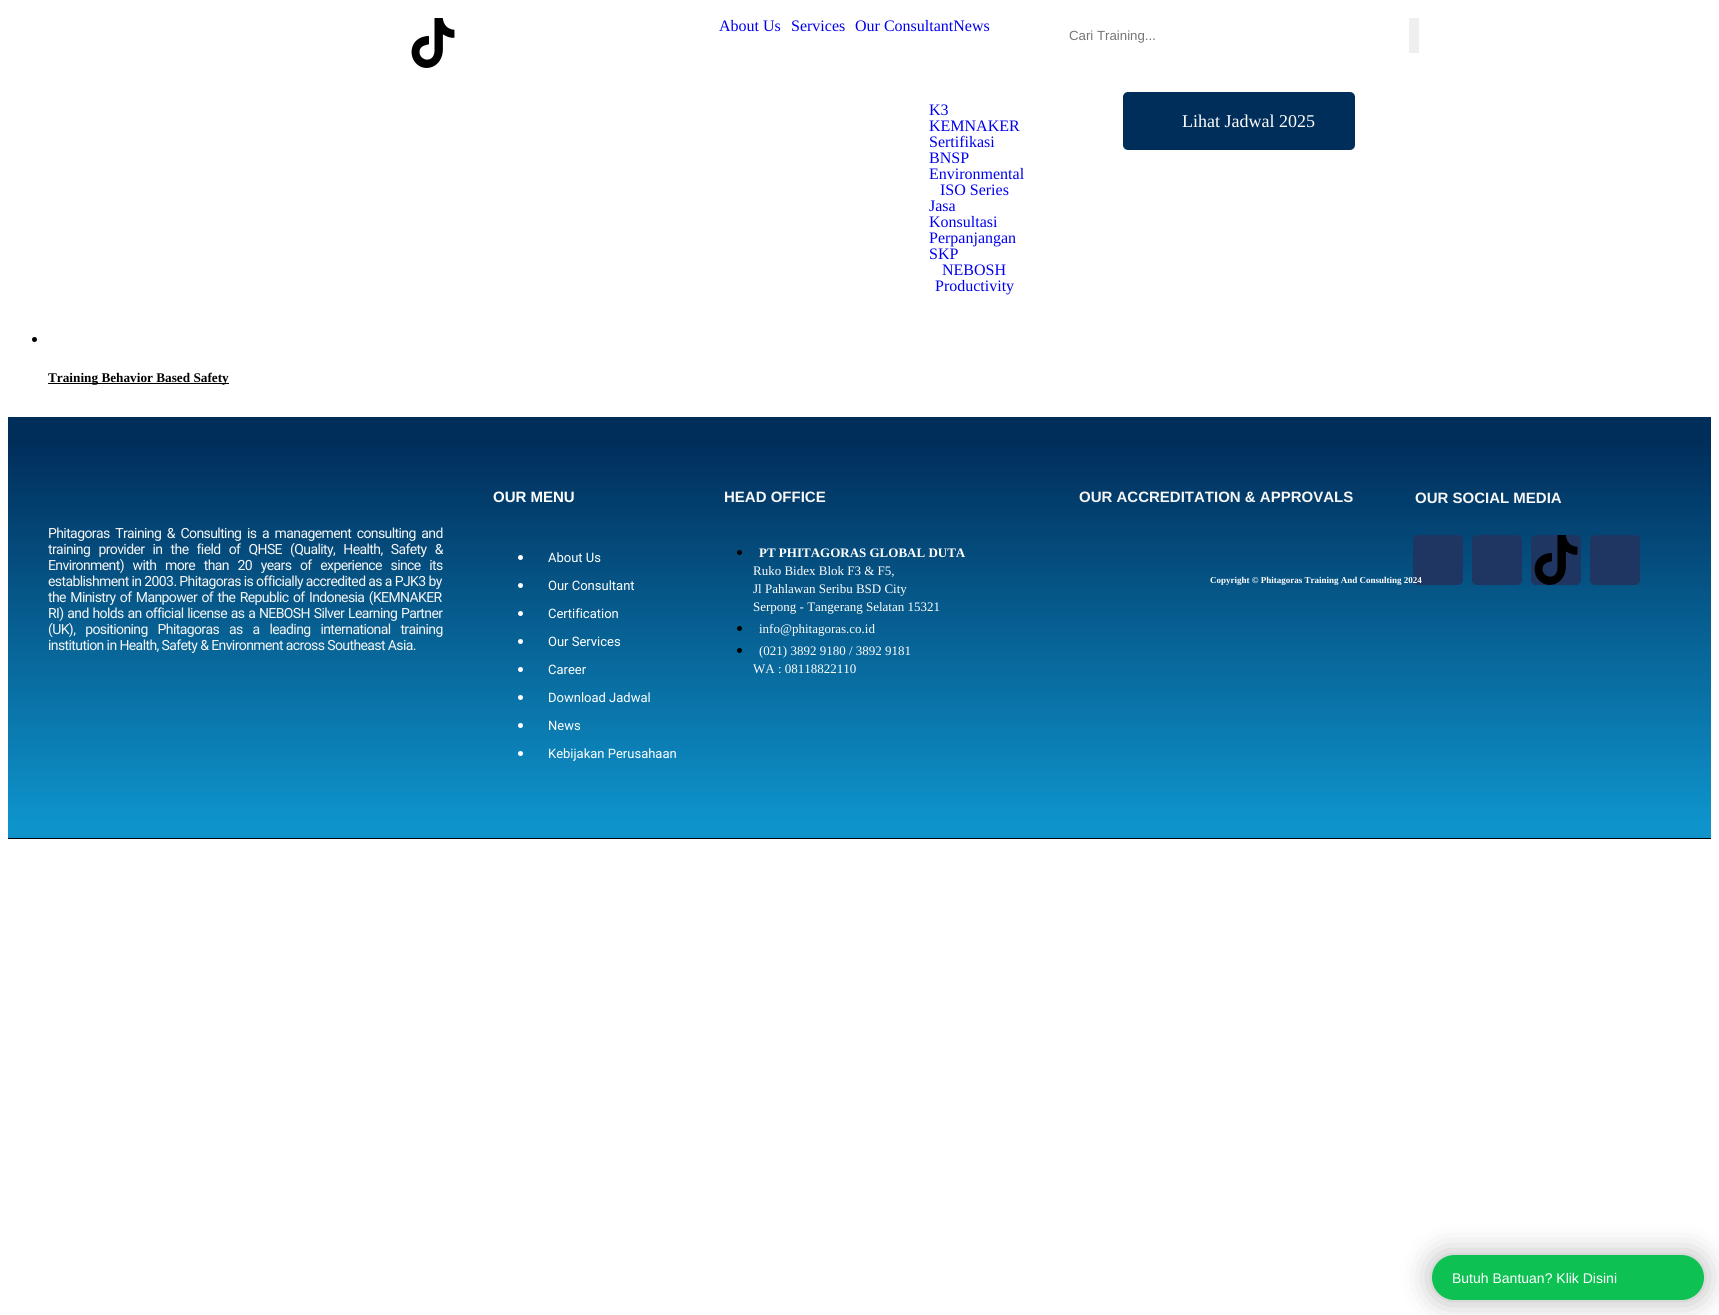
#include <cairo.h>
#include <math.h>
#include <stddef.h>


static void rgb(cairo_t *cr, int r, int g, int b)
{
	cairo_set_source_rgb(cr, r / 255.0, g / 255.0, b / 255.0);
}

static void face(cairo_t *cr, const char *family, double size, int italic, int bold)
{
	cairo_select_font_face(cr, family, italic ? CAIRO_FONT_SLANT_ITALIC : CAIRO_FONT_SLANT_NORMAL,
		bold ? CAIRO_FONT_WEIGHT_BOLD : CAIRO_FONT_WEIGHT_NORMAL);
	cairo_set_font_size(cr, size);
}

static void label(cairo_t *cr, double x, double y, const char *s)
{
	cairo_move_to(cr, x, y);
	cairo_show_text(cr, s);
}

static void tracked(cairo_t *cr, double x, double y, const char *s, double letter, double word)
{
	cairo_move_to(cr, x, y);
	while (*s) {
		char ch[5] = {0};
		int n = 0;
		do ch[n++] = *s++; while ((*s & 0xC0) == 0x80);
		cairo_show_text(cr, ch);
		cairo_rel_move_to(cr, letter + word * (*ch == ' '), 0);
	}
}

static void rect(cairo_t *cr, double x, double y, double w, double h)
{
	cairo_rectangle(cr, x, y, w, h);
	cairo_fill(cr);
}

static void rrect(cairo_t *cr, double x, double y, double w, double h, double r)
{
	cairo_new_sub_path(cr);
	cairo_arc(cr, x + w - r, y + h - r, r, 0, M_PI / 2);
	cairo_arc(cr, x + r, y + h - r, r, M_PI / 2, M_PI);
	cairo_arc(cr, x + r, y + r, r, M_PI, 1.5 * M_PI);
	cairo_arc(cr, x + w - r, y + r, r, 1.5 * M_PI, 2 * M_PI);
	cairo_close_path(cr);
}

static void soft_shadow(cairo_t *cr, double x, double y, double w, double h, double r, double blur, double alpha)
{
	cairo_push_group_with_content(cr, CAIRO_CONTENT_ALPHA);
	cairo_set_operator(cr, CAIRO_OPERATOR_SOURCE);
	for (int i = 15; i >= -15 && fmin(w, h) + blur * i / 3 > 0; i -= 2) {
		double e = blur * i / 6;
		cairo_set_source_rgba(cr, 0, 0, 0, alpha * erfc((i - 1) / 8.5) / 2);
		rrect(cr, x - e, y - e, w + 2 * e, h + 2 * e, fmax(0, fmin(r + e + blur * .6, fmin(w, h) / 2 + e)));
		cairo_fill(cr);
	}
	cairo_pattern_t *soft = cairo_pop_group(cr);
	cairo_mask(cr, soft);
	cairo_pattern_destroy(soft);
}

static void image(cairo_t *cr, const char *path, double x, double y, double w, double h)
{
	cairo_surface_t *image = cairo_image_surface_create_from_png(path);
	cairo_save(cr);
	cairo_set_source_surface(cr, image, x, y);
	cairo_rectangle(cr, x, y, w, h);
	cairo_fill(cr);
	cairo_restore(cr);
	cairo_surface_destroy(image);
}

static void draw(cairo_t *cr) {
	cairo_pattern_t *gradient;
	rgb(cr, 255, 255, 255);
	cairo_paint(cr);
	image(cr, "image0.png", 411, 18, 44, 50);
	face(cr, "Liberation Serif", 16, 0, 0);
	rgb(cr, 0, 0, 238);
	label(cr, 719, 31, "About Us");
	label(cr, 791, 31, "Services");
	label(cr, 855, 31, "Our ConsultantNews");
	face(cr, "Liberation Sans", 13.25, 0, 0);
	rgb(cr, 117, 117, 117);
	label(cr, 1069, 40, "Cari Training...");
	rgb(cr, 239, 239, 239);
	rect(cr, 1409, 18, 10, 35);
	face(cr, "Liberation Serif", 16, 0, 0);
	rgb(cr, 0, 0, 238);
	label(cr, 929, 115, "K3");
	label(cr, 929, 131, "KEMNAKER");
	label(cr, 929, 147, "Sertifikasi");
	label(cr, 929, 163, "BNSP");
	label(cr, 929, 179, "Environmental");
	label(cr, 940, 195, "ISO Series");
	label(cr, 929, 211, "Jasa");
	label(cr, 929, 227, "Konsultasi");
	label(cr, 929, 243, "Perpanjangan");
	label(cr, 929, 259, "SKP");
	label(cr, 942, 275, "NEBOSH");
	label(cr, 935, 291, "Productivity");
	rgb(cr, 0, 46, 91);
	rrect(cr, 1123, 92, 232, 58, 5);
	cairo_fill(cr);
	face(cr, "Liberation Serif", 18, 0, 0);
	rgb(cr, 255, 255, 255);
	label(cr, 1182, 127, "Lihat Jadwal 2025");
	rgb(cr, 0, 0, 0);
	cairo_new_path(cr);
	cairo_arc(cr, 34.5, 339.5, 2.5, 0, 2 * M_PI);
	cairo_fill(cr);
	rect(cr, 48, 383, 181, 1);
	face(cr, "Liberation Serif", 13.25, 0, 1);
	label(cr, 48, 382, "Training Behavior Based Safety");
	gradient = cairo_pattern_create_linear(860, 417, 860, 838);
	cairo_pattern_add_color_stop_rgba(gradient, 0.06, 0, 0.18, 0.357, 1);
	cairo_pattern_add_color_stop_rgba(gradient, 0.96, 0.055, 0.576, 0.796, 1);
	cairo_set_source(cr, gradient);
	cairo_pattern_destroy(gradient);
	rect(cr, 8, 417, 1703, 421);
	rgb(cr, 0, 0, 0);
	rect(cr, 8, 838, 1703, 1);
	face(cr, "Roboto", 14, 0, 0);
	rgb(cr, 246, 246, 246);
	tracked(cr, 48, 538, "Phitagoras Training & Consulting is a management consulting and", -0.6, 2.75);
	tracked(cr, 48, 554, "training provider in the field of QHSE (Quality, Health, Safety &", -0.6, 5.25);
	tracked(cr, 48, 570, "Environment) with more than 20 years of experience since its", -0.6, 5.75);
	tracked(cr, 48, 586, "establishment in 2003. Phitagoras is officially accredited as a PJK3 by", -0.6, 0);
	tracked(cr, 48, 602, "the Ministry of Manpower of the Republic of Indonesia (KEMNAKER", -0.6, 1.5);
	tracked(cr, 48, 618, "RI) and holds an official license as a NEBOSH Silver Learning Partner", -0.6, 0.9);
	tracked(cr, 48, 634, "(UK), positioning Phitagoras as a leading international training", -0.6, 7);
	tracked(cr, 48, 650, "institution in Health, Safety & Environment across Southeast Asia.", -0.6, 0);
	face(cr, "Liberation Sans", 15, 0, 1);
	rgb(cr, 255, 255, 255);
	label(cr, 493, 502, "OUR MENU");
	cairo_new_path(cr);
	cairo_arc(cr, 520.5, 557.5, 2.5, 0, 2 * M_PI);
	cairo_fill(cr);
	face(cr, "Roboto", 13, 0, 0);
	label(cr, 548, 562, "About Us");
	cairo_new_path(cr);
	cairo_arc(cr, 520.5, 585.5, 2.5, 0, 2 * M_PI);
	cairo_fill(cr);
	label(cr, 548, 590, "Our Consultant");
	cairo_new_path(cr);
	cairo_arc(cr, 520.5, 613.5, 2.5, 0, 2 * M_PI);
	cairo_fill(cr);
	label(cr, 548, 618, "Certification");
	cairo_new_path(cr);
	cairo_arc(cr, 520.5, 641.5, 2.5, 0, 2 * M_PI);
	cairo_fill(cr);
	label(cr, 548, 646, "Our Services");
	cairo_new_path(cr);
	cairo_arc(cr, 520.5, 669.5, 2.5, 0, 2 * M_PI);
	cairo_fill(cr);
	label(cr, 548, 674, "Career");
	cairo_new_path(cr);
	cairo_arc(cr, 520.5, 697.5, 2.5, 0, 2 * M_PI);
	cairo_fill(cr);
	label(cr, 548, 702, "Download Jadwal");
	cairo_new_path(cr);
	cairo_arc(cr, 520.5, 725.5, 2.5, 0, 2 * M_PI);
	cairo_fill(cr);
	label(cr, 548, 730, "News");
	cairo_new_path(cr);
	cairo_arc(cr, 520.5, 753.5, 2.5, 0, 2 * M_PI);
	cairo_fill(cr);
	label(cr, 548, 758, "Kebijakan Perusahaan");
	face(cr, "Liberation Sans", 15, 0, 1);
	rgb(cr, 246, 246, 246);
	label(cr, 724, 502, "HEAD OFFICE");
	rgb(cr, 0, 0, 0);
	cairo_new_path(cr);
	cairo_arc(cr, 739.5, 552.5, 2.5, 0, 2 * M_PI);
	cairo_fill(cr);
	face(cr, "Liberation Serif", 13, 0, 1);
	rgb(cr, 255, 255, 255);
	label(cr, 759, 557, "PT PHITAGORAS GLOBAL DUTA");
	face(cr, "Liberation Serif", 13, 0, 0);
	label(cr, 753, 575, "Ruko Bidex Blok F3 & F5,");
	label(cr, 753, 593, "Jl Pahlawan Seribu BSD City");
	label(cr, 753, 611, "Serpong - Tangerang Selatan 15321");
	rgb(cr, 0, 0, 0);
	cairo_new_path(cr);
	cairo_arc(cr, 739.5, 628.5, 2.5, 0, 2 * M_PI);
	cairo_fill(cr);
	rgb(cr, 255, 255, 255);
	label(cr, 759, 633, "info@phitagoras.co.id");
	rgb(cr, 0, 0, 0);
	cairo_new_path(cr);
	cairo_arc(cr, 739.5, 650.5, 2.5, 0, 2 * M_PI);
	cairo_fill(cr);
	rgb(cr, 255, 255, 255);
	label(cr, 759, 655, "(021) 3892 9180 / 3892 9181");
	label(cr, 753, 673, "WA : 08118822110");
	face(cr, "Liberation Sans", 15, 0, 1);
	rgb(cr, 246, 246, 246);
	label(cr, 1079, 502, "OUR ACCREDITATION & APPROVALS");
	label(cr, 1415, 503, "OUR SOCIAL MEDIA");
	rgb(cr, 30, 54, 97);
	rrect(cr, 1413, 535, 50, 50, 5);
	cairo_fill(cr);
	rrect(cr, 1472, 535, 50, 50, 5);
	cairo_fill(cr);
	rrect(cr, 1531, 535, 50, 50, 5);
	cairo_fill(cr);
	image(cr, "image1.png", 1534, 535, 44, 50);
	rrect(cr, 1590, 535, 50, 50, 5);
	cairo_fill(cr);
	face(cr, "Liberation Serif", 9, 0, 1);
	rgb(cr, 255, 255, 255);
	label(cr, 1210, 583, "Copyright © Phitagoras Training And Consulting 2024");
	rgb(cr, 0, 0, 0);
	soft_shadow(cr, 1432, 1255, 272, 45, 22.5, 15, 0.3);
	rgb(cr, 13, 193, 82);
	rrect(cr, 1432, 1255, 272, 45, 22.5);
	cairo_fill(cr);
	face(cr, "Liberation Sans", 14, 0, 0);
	rgb(cr, 255, 255, 255);
	label(cr, 1452, 1283, "Butuh Bantuan? Klik Disini");
}

int main(void) {
	cairo_surface_t *surface = cairo_image_surface_create(CAIRO_FORMAT_RGB24, 1719, 1315);
	cairo_t *cr = cairo_create(surface);
	cairo_font_options_t *options = cairo_font_options_create();
	cairo_font_options_set_hint_metrics(options, CAIRO_HINT_METRICS_OFF);
	cairo_font_options_set_hint_style(options, CAIRO_HINT_STYLE_NONE);
	cairo_set_font_options(cr, options);
	cairo_set_miter_limit(cr, 4);
	draw(cr);
	cairo_surface_write_to_png(surface, "render.png");
	cairo_font_options_destroy(options);
	cairo_destroy(cr);
	cairo_surface_destroy(surface);
	return 0;
}
